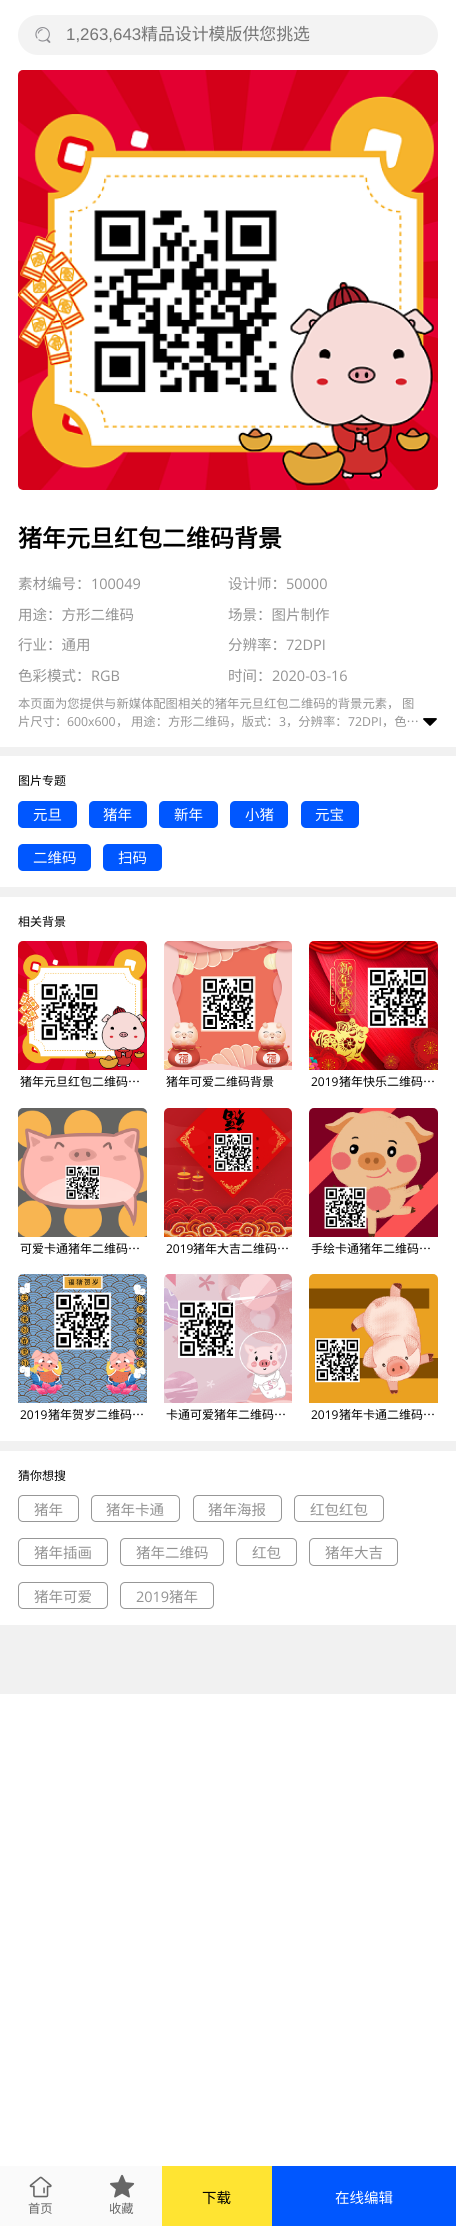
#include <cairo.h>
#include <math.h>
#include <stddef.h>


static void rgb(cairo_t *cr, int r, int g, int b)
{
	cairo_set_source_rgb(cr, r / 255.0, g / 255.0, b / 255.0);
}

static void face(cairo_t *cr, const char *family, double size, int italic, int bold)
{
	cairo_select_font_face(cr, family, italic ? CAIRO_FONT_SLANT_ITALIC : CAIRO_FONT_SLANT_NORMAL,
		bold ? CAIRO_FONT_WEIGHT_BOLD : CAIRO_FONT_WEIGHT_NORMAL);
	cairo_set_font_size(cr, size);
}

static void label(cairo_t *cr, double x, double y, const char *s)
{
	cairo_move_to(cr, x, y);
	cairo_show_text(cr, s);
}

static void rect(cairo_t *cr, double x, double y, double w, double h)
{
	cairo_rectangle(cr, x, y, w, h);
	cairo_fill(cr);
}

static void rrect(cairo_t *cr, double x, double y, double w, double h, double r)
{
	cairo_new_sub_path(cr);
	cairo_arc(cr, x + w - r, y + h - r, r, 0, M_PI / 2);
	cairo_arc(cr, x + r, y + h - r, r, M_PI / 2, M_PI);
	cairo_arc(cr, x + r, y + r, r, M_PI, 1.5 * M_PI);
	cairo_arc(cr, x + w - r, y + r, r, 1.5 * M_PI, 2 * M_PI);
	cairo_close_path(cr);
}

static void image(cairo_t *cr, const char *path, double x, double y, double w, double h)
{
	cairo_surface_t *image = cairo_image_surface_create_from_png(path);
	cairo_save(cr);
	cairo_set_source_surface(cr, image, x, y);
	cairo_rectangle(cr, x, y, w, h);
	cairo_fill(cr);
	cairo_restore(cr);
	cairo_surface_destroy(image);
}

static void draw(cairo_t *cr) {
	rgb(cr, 255, 255, 255);
	cairo_paint(cr);
	rgb(cr, 241, 241, 241);
	rect(cr, 0, 747, 456, 947);
	rgb(cr, 243, 243, 243);
	rrect(cr, 18, 15, 420, 40, 20);
	cairo_fill(cr);
	image(cr, "image0.png", 35, 27, 16, 16);
	face(cr, "Liberation Sans", 16.9, 0, 0);
	rgb(cr, 117, 117, 117);
	label(cr, 66, 40, "1,263,643");
	face(cr, "Noto Sans CJK SC", 16.9, 0, 0);
	label(cr, 141, 40, "精品设计模版供您挑选");
	image(cr, "image1.png", 18, 70, 420, 420);
	face(cr, "Noto Sans CJK SC", 24, 0, 1);
	rgb(cr, 0, 0, 0);
	label(cr, 18, 547, "猪年元旦红包二维码背景");
	face(cr, "Noto Sans CJK SC", 14.5, 0, 0);
	rgb(cr, 147, 147, 147);
	label(cr, 18, 589, "素材编号：");
	face(cr, "Open Sans", 14.5, 0, 0);
	label(cr, 91, 589, "100049");
	face(cr, "Noto Sans CJK SC", 14.5, 0, 0);
	label(cr, 228, 589, "设计师：");
	face(cr, "Open Sans", 14.5, 0, 0);
	label(cr, 286, 589, "50000");
	face(cr, "Noto Sans CJK SC", 14.5, 0, 0);
	label(cr, 18, 620, "用途：方形二维码");
	label(cr, 228, 620, "场景：图片制作");
	label(cr, 18, 650, "行业：通用");
	label(cr, 228, 650, "分辨率：");
	face(cr, "Open Sans", 14.5, 0, 0);
	label(cr, 286, 650, "72DPI");
	face(cr, "Noto Sans CJK SC", 14.5, 0, 0);
	label(cr, 18, 681, "色彩模式：");
	face(cr, "Open Sans", 14.5, 0, 0);
	label(cr, 91, 681, "RGB");
	face(cr, "Noto Sans CJK SC", 14.5, 0, 0);
	label(cr, 228, 681, "时间：");
	face(cr, "Open Sans", 14.5, 0, 0);
	label(cr, 272, 681, "2020-03-16");
	face(cr, "Noto Sans CJK SC", 12.3, 0, 0);
	label(cr, 18, 708, "本页面为您提供与新媒体配图相关的猪年元旦红包二维码的背景元素， 图");
	label(cr, 18, 726, "片尺寸：");
	face(cr, "Open Sans", 12.3, 0, 0);
	label(cr, 67, 726, "600x600");
	face(cr, "Noto Sans CJK SC", 12.3, 0, 0);
	label(cr, 116, 726, "， 用途：方形二维码，版式：");
	face(cr, "Open Sans", 12.3, 0, 0);
	label(cr, 279, 726, "3");
	face(cr, "Noto Sans CJK SC", 12.3, 0, 0);
	label(cr, 286, 726, "，分辨率：");
	face(cr, "Open Sans", 12.3, 0, 0);
	label(cr, 348, 726, "72DPI");
	face(cr, "Noto Sans CJK SC", 12.3, 0, 0);
	label(cr, 382, 726, "，色…");
	image(cr, "image2.png", 423, 718, 14, 8);
	rgb(cr, 255, 255, 255);
	rect(cr, 0, 756, 456, 131);
	face(cr, "Noto Sans CJK SC", 12, 0, 0);
	rgb(cr, 0, 0, 0);
	label(cr, 18, 785, "图片专题");
	rgb(cr, 0, 87, 255);
	rrect(cr, 18, 801, 59, 27, 5);
	cairo_fill(cr);
	face(cr, "Noto Sans CJK SC", 14.5, 0, 0);
	rgb(cr, 255, 255, 255);
	label(cr, 33, 820, "元旦");
	rgb(cr, 0, 87, 255);
	rrect(cr, 89, 801, 58, 27, 5);
	cairo_fill(cr);
	rgb(cr, 255, 255, 255);
	label(cr, 103, 820, "猪年");
	rgb(cr, 0, 87, 255);
	rrect(cr, 159, 801, 59, 27, 5);
	cairo_fill(cr);
	rgb(cr, 255, 255, 255);
	label(cr, 174, 820, "新年");
	rgb(cr, 0, 87, 255);
	rrect(cr, 230, 801, 58, 27, 5);
	cairo_fill(cr);
	rgb(cr, 255, 255, 255);
	label(cr, 245, 820, "小猪");
	rgb(cr, 0, 87, 255);
	rrect(cr, 301, 801, 58, 27, 5);
	cairo_fill(cr);
	rgb(cr, 255, 255, 255);
	label(cr, 315, 820, "元宝");
	rgb(cr, 0, 87, 255);
	rrect(cr, 18, 844, 73, 27, 5);
	cairo_fill(cr);
	rgb(cr, 255, 255, 255);
	label(cr, 33, 863, "二维码");
	rgb(cr, 0, 87, 255);
	rrect(cr, 103, 844, 59, 27, 5);
	cairo_fill(cr);
	rgb(cr, 255, 255, 255);
	label(cr, 118, 863, "扫码");
	rect(cr, 0, 897, 456, 544);
	face(cr, "Noto Sans CJK SC", 12, 0, 0);
	rgb(cr, 0, 0, 0);
	label(cr, 18, 926, "相关背景");
	image(cr, "image3.png", 18, 941, 129, 129);
	label(cr, 20, 1086, "猪年元旦红包二维码…");
	image(cr, "image4.png", 164, 941, 128, 129);
	label(cr, 166, 1086, "猪年可爱二维码背景");
	image(cr, "image5.png", 309, 941, 129, 129);
	face(cr, "Open Sans", 12, 0, 0);
	label(cr, 311, 1086, "2019");
	face(cr, "Noto Sans CJK SC", 12, 0, 0);
	label(cr, 339, 1086, "猪年快乐二维码…");
	image(cr, "image6.png", 18, 1108, 129, 129);
	label(cr, 20, 1253, "可爱卡通猪年二维码…");
	image(cr, "image7.png", 164, 1108, 128, 129);
	face(cr, "Open Sans", 12, 0, 0);
	label(cr, 166, 1253, "2019");
	face(cr, "Noto Sans CJK SC", 12, 0, 0);
	label(cr, 193, 1253, "猪年大吉二维码…");
	image(cr, "image8.png", 309, 1108, 129, 129);
	label(cr, 311, 1253, "手绘卡通猪年二维码…");
	image(cr, "image9.png", 18, 1274, 129, 129);
	face(cr, "Open Sans", 12, 0, 0);
	label(cr, 20, 1419, "2019");
	face(cr, "Noto Sans CJK SC", 12, 0, 0);
	label(cr, 48, 1419, "猪年贺岁二维码…");
	image(cr, "image10.png", 164, 1274, 128, 129);
	label(cr, 166, 1419, "卡通可爱猪年二维码…");
	image(cr, "image11.png", 309, 1274, 129, 129);
	face(cr, "Open Sans", 12, 0, 0);
	label(cr, 311, 1419, "2019");
	face(cr, "Noto Sans CJK SC", 12, 0, 0);
	label(cr, 339, 1419, "猪年卡通二维码…");
	rgb(cr, 255, 255, 255);
	rect(cr, 0, 1451, 456, 174);
	rgb(cr, 0, 0, 0);
	label(cr, 18, 1480, "猜你想搜");
	rrect(cr, 18.5, 1495.5, 60, 26, 4.5);
	rgb(cr, 151, 151, 151);
	cairo_set_line_width(cr, 1);
	cairo_stroke(cr);
	face(cr, "Noto Sans CJK SC", 14.5, 0, 0);
	rgb(cr, 147, 147, 147);
	label(cr, 34, 1515, "猪年");
	rrect(cr, 91.5, 1495.5, 88, 26, 4.5);
	rgb(cr, 151, 151, 151);
	cairo_stroke(cr);
	rgb(cr, 147, 147, 147);
	label(cr, 106, 1515, "猪年卡通");
	rrect(cr, 193.5, 1495.5, 88, 26, 4.5);
	rgb(cr, 151, 151, 151);
	cairo_stroke(cr);
	rgb(cr, 147, 147, 147);
	label(cr, 208, 1515, "猪年海报");
	rrect(cr, 294.5, 1495.5, 89, 26, 4.5);
	rgb(cr, 151, 151, 151);
	cairo_stroke(cr);
	rgb(cr, 147, 147, 147);
	label(cr, 310, 1515, "红包红包");
	rrect(cr, 18.5, 1538.5, 89, 27, 4.5);
	rgb(cr, 151, 151, 151);
	cairo_stroke(cr);
	rgb(cr, 147, 147, 147);
	label(cr, 34, 1558, "猪年插画");
	rrect(cr, 120.5, 1538.5, 103, 27, 4.5);
	rgb(cr, 151, 151, 151);
	cairo_stroke(cr);
	rgb(cr, 147, 147, 147);
	label(cr, 136, 1558, "猪年二维码");
	rrect(cr, 236.5, 1538.5, 60, 27, 4.5);
	rgb(cr, 151, 151, 151);
	cairo_stroke(cr);
	rgb(cr, 147, 147, 147);
	label(cr, 252, 1558, "红包");
	rrect(cr, 309.5, 1538.5, 88, 27, 4.5);
	rgb(cr, 151, 151, 151);
	cairo_stroke(cr);
	rgb(cr, 147, 147, 147);
	label(cr, 325, 1558, "猪年大吉");
	rrect(cr, 18.5, 1582.5, 89, 26, 4.5);
	rgb(cr, 151, 151, 151);
	cairo_stroke(cr);
	rgb(cr, 147, 147, 147);
	label(cr, 34, 1602, "猪年可爱");
	rrect(cr, 120.5, 1582.5, 93, 26, 4.5);
	rgb(cr, 151, 151, 151);
	cairo_stroke(cr);
	face(cr, "Open Sans", 14.5, 0, 0);
	rgb(cr, 147, 147, 147);
	label(cr, 136, 1602, "2019");
	face(cr, "Noto Sans CJK SC", 14.5, 0, 0);
	label(cr, 169, 1602, "猪年");
	rgb(cr, 250, 250, 250);
	rect(cr, 0, 2166, 162, 60);
	rgb(cr, 255, 228, 50);
	rect(cr, 162, 2166, 110, 60);
	rgb(cr, 0, 0, 0);
	label(cr, 202, 2203, "下载");
	rgb(cr, 0, 87, 255);
	rect(cr, 272, 2166, 184, 60);
	rgb(cr, 255, 255, 255);
	label(cr, 335, 2203, "在线编辑");
	image(cr, "image12.png", 29, 2176, 23, 22);
	face(cr, "Noto Sans CJK SC", 12.3, 0, 0);
	rgb(cr, 102, 102, 102);
	label(cr, 28, 2213, "首页");
	image(cr, "image13.png", 110, 2174, 25, 24);
	label(cr, 109, 2213, "收藏");
}

int main(void) {
	cairo_surface_t *surface = cairo_image_surface_create(CAIRO_FORMAT_RGB24, 456, 2226);
	cairo_t *cr = cairo_create(surface);
	cairo_font_options_t *options = cairo_font_options_create();
	cairo_font_options_set_hint_metrics(options, CAIRO_HINT_METRICS_OFF);
	cairo_font_options_set_hint_style(options, CAIRO_HINT_STYLE_NONE);
	cairo_set_font_options(cr, options);
	cairo_set_miter_limit(cr, 4);
	draw(cr);
	cairo_surface_write_to_png(surface, "render.png");
	cairo_font_options_destroy(options);
	cairo_destroy(cr);
	cairo_surface_destroy(surface);
	return 0;
}
